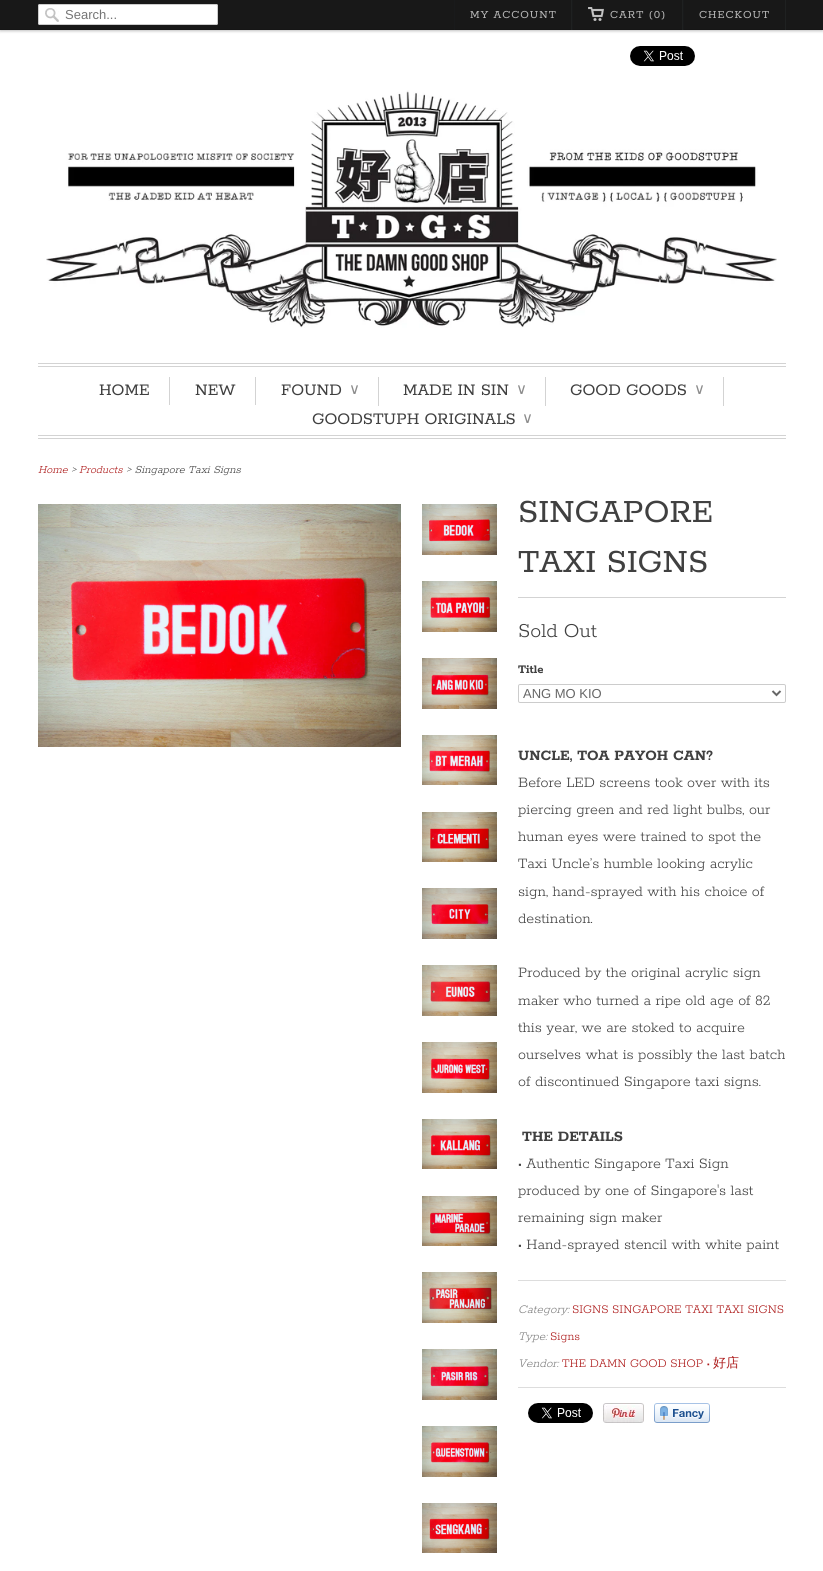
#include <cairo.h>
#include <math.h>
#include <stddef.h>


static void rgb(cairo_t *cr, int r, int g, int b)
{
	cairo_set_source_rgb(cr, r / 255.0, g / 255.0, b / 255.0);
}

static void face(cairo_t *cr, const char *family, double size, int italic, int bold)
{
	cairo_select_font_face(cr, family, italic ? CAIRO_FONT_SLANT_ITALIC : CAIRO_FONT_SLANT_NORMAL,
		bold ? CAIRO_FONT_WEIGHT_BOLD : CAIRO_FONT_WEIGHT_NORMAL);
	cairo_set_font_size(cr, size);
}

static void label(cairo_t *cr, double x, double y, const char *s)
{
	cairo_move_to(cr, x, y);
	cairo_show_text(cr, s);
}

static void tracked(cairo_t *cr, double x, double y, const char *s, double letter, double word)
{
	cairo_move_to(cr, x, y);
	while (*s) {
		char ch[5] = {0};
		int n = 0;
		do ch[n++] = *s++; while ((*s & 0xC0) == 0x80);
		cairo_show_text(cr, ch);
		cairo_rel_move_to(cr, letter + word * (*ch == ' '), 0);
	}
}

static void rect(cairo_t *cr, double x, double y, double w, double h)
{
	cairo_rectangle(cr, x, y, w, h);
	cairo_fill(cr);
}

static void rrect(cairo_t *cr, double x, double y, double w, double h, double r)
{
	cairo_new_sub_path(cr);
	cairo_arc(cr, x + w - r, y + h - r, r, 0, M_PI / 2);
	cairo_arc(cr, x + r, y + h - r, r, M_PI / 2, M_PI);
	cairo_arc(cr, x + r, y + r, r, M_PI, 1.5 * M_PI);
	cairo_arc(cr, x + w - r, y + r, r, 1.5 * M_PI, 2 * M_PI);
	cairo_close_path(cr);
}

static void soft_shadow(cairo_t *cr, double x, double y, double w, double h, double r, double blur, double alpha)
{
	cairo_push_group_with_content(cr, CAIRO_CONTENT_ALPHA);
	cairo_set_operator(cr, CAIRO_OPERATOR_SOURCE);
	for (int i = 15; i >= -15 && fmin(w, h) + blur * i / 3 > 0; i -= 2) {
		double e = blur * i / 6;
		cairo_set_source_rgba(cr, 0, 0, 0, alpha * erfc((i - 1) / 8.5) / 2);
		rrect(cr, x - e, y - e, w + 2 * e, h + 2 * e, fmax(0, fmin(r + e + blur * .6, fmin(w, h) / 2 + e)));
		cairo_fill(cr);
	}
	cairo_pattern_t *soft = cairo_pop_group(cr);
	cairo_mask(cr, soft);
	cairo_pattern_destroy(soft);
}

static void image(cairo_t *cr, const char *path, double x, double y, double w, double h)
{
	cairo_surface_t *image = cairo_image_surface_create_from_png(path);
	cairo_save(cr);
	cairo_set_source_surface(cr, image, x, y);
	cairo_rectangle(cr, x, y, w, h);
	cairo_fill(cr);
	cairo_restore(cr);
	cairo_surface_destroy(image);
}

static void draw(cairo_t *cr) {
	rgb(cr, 255, 255, 255);
	cairo_paint(cr);
	rgb(cr, 0, 0, 0);
	soft_shadow(cr, 0, 1, 823, 30, 0, 1.5, 0.25);
	rgb(cr, 24, 24, 24);
	rect(cr, 0, 0, 823, 29);
	rgb(cr, 22, 22, 22);
	rect(cr, 0, 29, 823, 1);
	rgb(cr, 255, 255, 255);
	rrect(cr, 38, 4, 180, 21, 2);
	cairo_fill(cr);
	image(cr, "image0.png", 45, 8, 14, 14);
	rrect(cr, 38.5, 4.5, 179, 20, 1.5);
	rgb(cr, 204, 204, 204);
	cairo_set_line_width(cr, 1);
	cairo_stroke(cr);
	face(cr, "Liberation Sans", 13, 0, 0);
	rgb(cr, 117, 117, 117);
	label(cr, 65, 19, "Search...");
	rgb(cr, 31, 33, 33);
	rect(cr, 571, 0, 1, 30);
	rgb(cr, 25, 26, 27);
	rect(cr, 454, 0, 1, 30);
	face(cr, "Rokkitt", 12, 0, 0);
	rgb(cr, 182, 182, 182);
	tracked(cr, 470, 18, "MY ACCOUNT", 1, 0);
	rgb(cr, 31, 33, 33);
	rect(cr, 682, 0, 1, 30);
	rgb(cr, 25, 26, 27);
	rect(cr, 572, 0, 1, 30);
	image(cr, "image1.png", 588, 7, 16, 14);
	rgb(cr, 182, 182, 182);
	tracked(cr, 610, 18, "CART (0)", 1, 0);
	rgb(cr, 31, 33, 33);
	rect(cr, 785, 0, 1, 30);
	rgb(cr, 25, 26, 27);
	rect(cr, 683, 0, 1, 30);
	rgb(cr, 182, 182, 182);
	tracked(cr, 699, 18, "CHECKOUT", 1, 0);
	image(cr, "image2.png", 630, 46, 65, 20);
	image(cr, "image3.png", 46, 90, 731, 238);
	rgb(cr, 211, 211, 211);
	rect(cr, 38, 363, 748, 1);
	rect(cr, 38, 366, 748, 1);
	rect(cr, 38, 435, 748, 1);
	rect(cr, 38, 438, 748, 1);
	rect(cr, 169, 377, 1, 28);
	face(cr, "Rokkitt", 18, 0, 0);
	rgb(cr, 64, 64, 64);
	label(cr, 99, 395, "HOME");
	rgb(cr, 211, 211, 211);
	rect(cr, 255, 377, 1, 28);
	rgb(cr, 64, 64, 64);
	label(cr, 195, 395, "NEW");
	rgb(cr, 211, 211, 211);
	rect(cr, 378, 377, 1, 29);
	rgb(cr, 64, 64, 64);
	label(cr, 281, 395, "FOUND");
	face(cr, "DejaVu Sans", 15, 0, 0);
	rgb(cr, 140, 140, 140);
	label(cr, 349, 394, "∨");
	rgb(cr, 211, 211, 211);
	rect(cr, 545, 377, 1, 29);
	face(cr, "Rokkitt", 18, 0, 0);
	rgb(cr, 64, 64, 64);
	label(cr, 403, 395, "MADE IN SIN");
	face(cr, "DejaVu Sans", 15, 0, 0);
	rgb(cr, 140, 140, 140);
	label(cr, 516, 394, "∨");
	rgb(cr, 211, 211, 211);
	rect(cr, 723, 377, 1, 29);
	face(cr, "Rokkitt", 18, 0, 0);
	rgb(cr, 64, 64, 64);
	label(cr, 570, 395, "GOOD GOODS");
	face(cr, "DejaVu Sans", 15, 0, 0);
	rgb(cr, 140, 140, 140);
	label(cr, 694, 394, "∨");
	face(cr, "Rokkitt", 18, 0, 0);
	rgb(cr, 64, 64, 64);
	label(cr, 312, 424, "GOODSTUPH ORIGINALS");
	face(cr, "DejaVu Sans", 15, 0, 0);
	rgb(cr, 140, 140, 140);
	label(cr, 522, 423, "∨");
	face(cr, "Rokkitt Light", 12, 1, 0);
	rgb(cr, 173, 26, 26);
	label(cr, 38, 473, "Home");
	rgb(cr, 64, 64, 64);
	label(cr, 71, 473, ">");
	rgb(cr, 173, 26, 26);
	label(cr, 79, 473, "Products");
	rgb(cr, 64, 64, 64);
	label(cr, 126, 473, "> Singapore Taxi Signs");
	image(cr, "image4.png", 38, 504, 363, 243);
	image(cr, "image5.png", 422, 504, 75, 51);
	image(cr, "image6.png", 422, 581, 75, 51);
	image(cr, "image7.png", 422, 658, 75, 51);
	image(cr, "image8.png", 422, 735, 75, 50);
	image(cr, "image9.png", 422, 812, 75, 50);
	image(cr, "image10.png", 422, 888, 75, 51);
	image(cr, "image11.png", 422, 965, 75, 51);
	image(cr, "image12.png", 422, 1042, 75, 51);
	image(cr, "image13.png", 422, 1119, 75, 50);
	image(cr, "image14.png", 422, 1196, 75, 50);
	image(cr, "image15.png", 422, 1272, 75, 51);
	image(cr, "image16.png", 422, 1349, 75, 51);
	image(cr, "image17.png", 422, 1426, 75, 51);
	image(cr, "image18.png", 422, 1503, 75, 50);
	rgb(cr, 211, 211, 211);
	rect(cr, 518, 597, 268, 1);
	face(cr, "Rokkitt", 36, 0, 0);
	rgb(cr, 64, 64, 64);
	label(cr, 518, 522, "SINGAPORE");
	label(cr, 518, 572, "TAXI SIGNS");
	face(cr, "Rokkitt Light", 22, 0, 0);
	label(cr, 518, 637, "Sold Out");
	face(cr, "Rokkitt", 13, 0, 1);
	label(cr, 518, 673, "Title");
	rrect(cr, 518.5, 684.5, 267, 18, 1.5);
	rgb(cr, 204, 204, 204);
	cairo_stroke(cr);
	cairo_new_path(cr);
	cairo_move_to(cr, 772.5, 691);
	cairo_line_to(cr, 776.5, 695);
	cairo_line_to(cr, 780.5, 691);
	rgb(cr, 102, 102, 102);
	cairo_set_line_width(cr, 2);
	cairo_stroke(cr);
	face(cr, "Liberation Sans", 13, 0, 0);
	label(cr, 523, 698, "ANG MO KIO");
	face(cr, "Rokkitt", 16, 0, 1);
	rgb(cr, 64, 64, 64);
	label(cr, 518, 760, "UNCLE, TOA PAYOH CAN?");
	face(cr, "Rokkitt Light", 16, 0, 0);
	label(cr, 518, 787, "Before LED screens took over with its");
	label(cr, 518, 814, "piercing green and red light bulbs, our");
	label(cr, 518, 841, "human eyes were trained to spot the");
	label(cr, 518, 868, "Taxi Uncle’s humble looking acrylic");
	label(cr, 518, 896, "sign, hand-sprayed with his choice of");
	label(cr, 518, 923, "destination.");
	label(cr, 518, 977, "Produced by the original acrylic sign");
	label(cr, 518, 1005, "maker who turned a ripe old age of 82");
	label(cr, 518, 1032, "this year, we are stoked to acquire");
	label(cr, 518, 1059, "ourselves what is possibly the last batch");
	label(cr, 518, 1086, "of discontinued Singapore taxi signs.");
	face(cr, "Rokkitt", 16, 0, 1);
	label(cr, 522, 1141, "THE DETAILS");
	face(cr, "Rokkitt Light", 16, 0, 0);
	label(cr, 518, 1168, "• Authentic Singapore Taxi Sign");
	label(cr, 518, 1195, "produced by one of Singapore's last");
	label(cr, 518, 1222, "remaining sign maker");
	label(cr, 518, 1249, "• Hand-sprayed stencil with white paint");
	rgb(cr, 221, 221, 221);
	rect(cr, 518, 1280, 268, 1);
	face(cr, "Rokkitt Light", 13, 1, 0);
	rgb(cr, 128, 128, 128);
	label(cr, 518, 1313, "Category:");
	face(cr, "Rokkitt Light", 13, 0, 0);
	rgb(cr, 173, 26, 26);
	label(cr, 572, 1313, "SIGNS SINGAPORE TAXI TAXI SIGNS");
	face(cr, "Rokkitt Light", 13, 1, 0);
	rgb(cr, 128, 128, 128);
	label(cr, 518, 1340, "Type:");
	face(cr, "Rokkitt Light", 13, 0, 0);
	rgb(cr, 173, 26, 26);
	label(cr, 550, 1340, "Signs");
	face(cr, "Rokkitt Light", 13, 1, 0);
	rgb(cr, 128, 128, 128);
	label(cr, 518, 1367, "Vendor:");
	face(cr, "Rokkitt Light", 13, 0, 0);
	rgb(cr, 173, 26, 26);
	label(cr, 562, 1367, "THE DAMN GOOD SHOP •");
	face(cr, "WenQuanYi Zen Hei Medium", 13, 0, 0);
	label(cr, 713, 1367, "好店");
	rgb(cr, 221, 221, 221);
	rect(cr, 518, 1387, 268, 1);
	image(cr, "image2.png", 528, 1403, 65, 20);
	image(cr, "image19.png", 603, 1403, 41, 20);
	image(cr, "image20.png", 654, 1403, 56, 20);
}

int main(void) {
	cairo_surface_t *surface = cairo_image_surface_create(CAIRO_FORMAT_RGB24, 823, 1571);
	cairo_t *cr = cairo_create(surface);
	cairo_font_options_t *options = cairo_font_options_create();
	cairo_font_options_set_hint_metrics(options, CAIRO_HINT_METRICS_OFF);
	cairo_font_options_set_hint_style(options, CAIRO_HINT_STYLE_NONE);
	cairo_set_font_options(cr, options);
	cairo_set_miter_limit(cr, 4);
	draw(cr);
	cairo_surface_write_to_png(surface, "render.png");
	cairo_font_options_destroy(options);
	cairo_destroy(cr);
	cairo_surface_destroy(surface);
	return 0;
}
